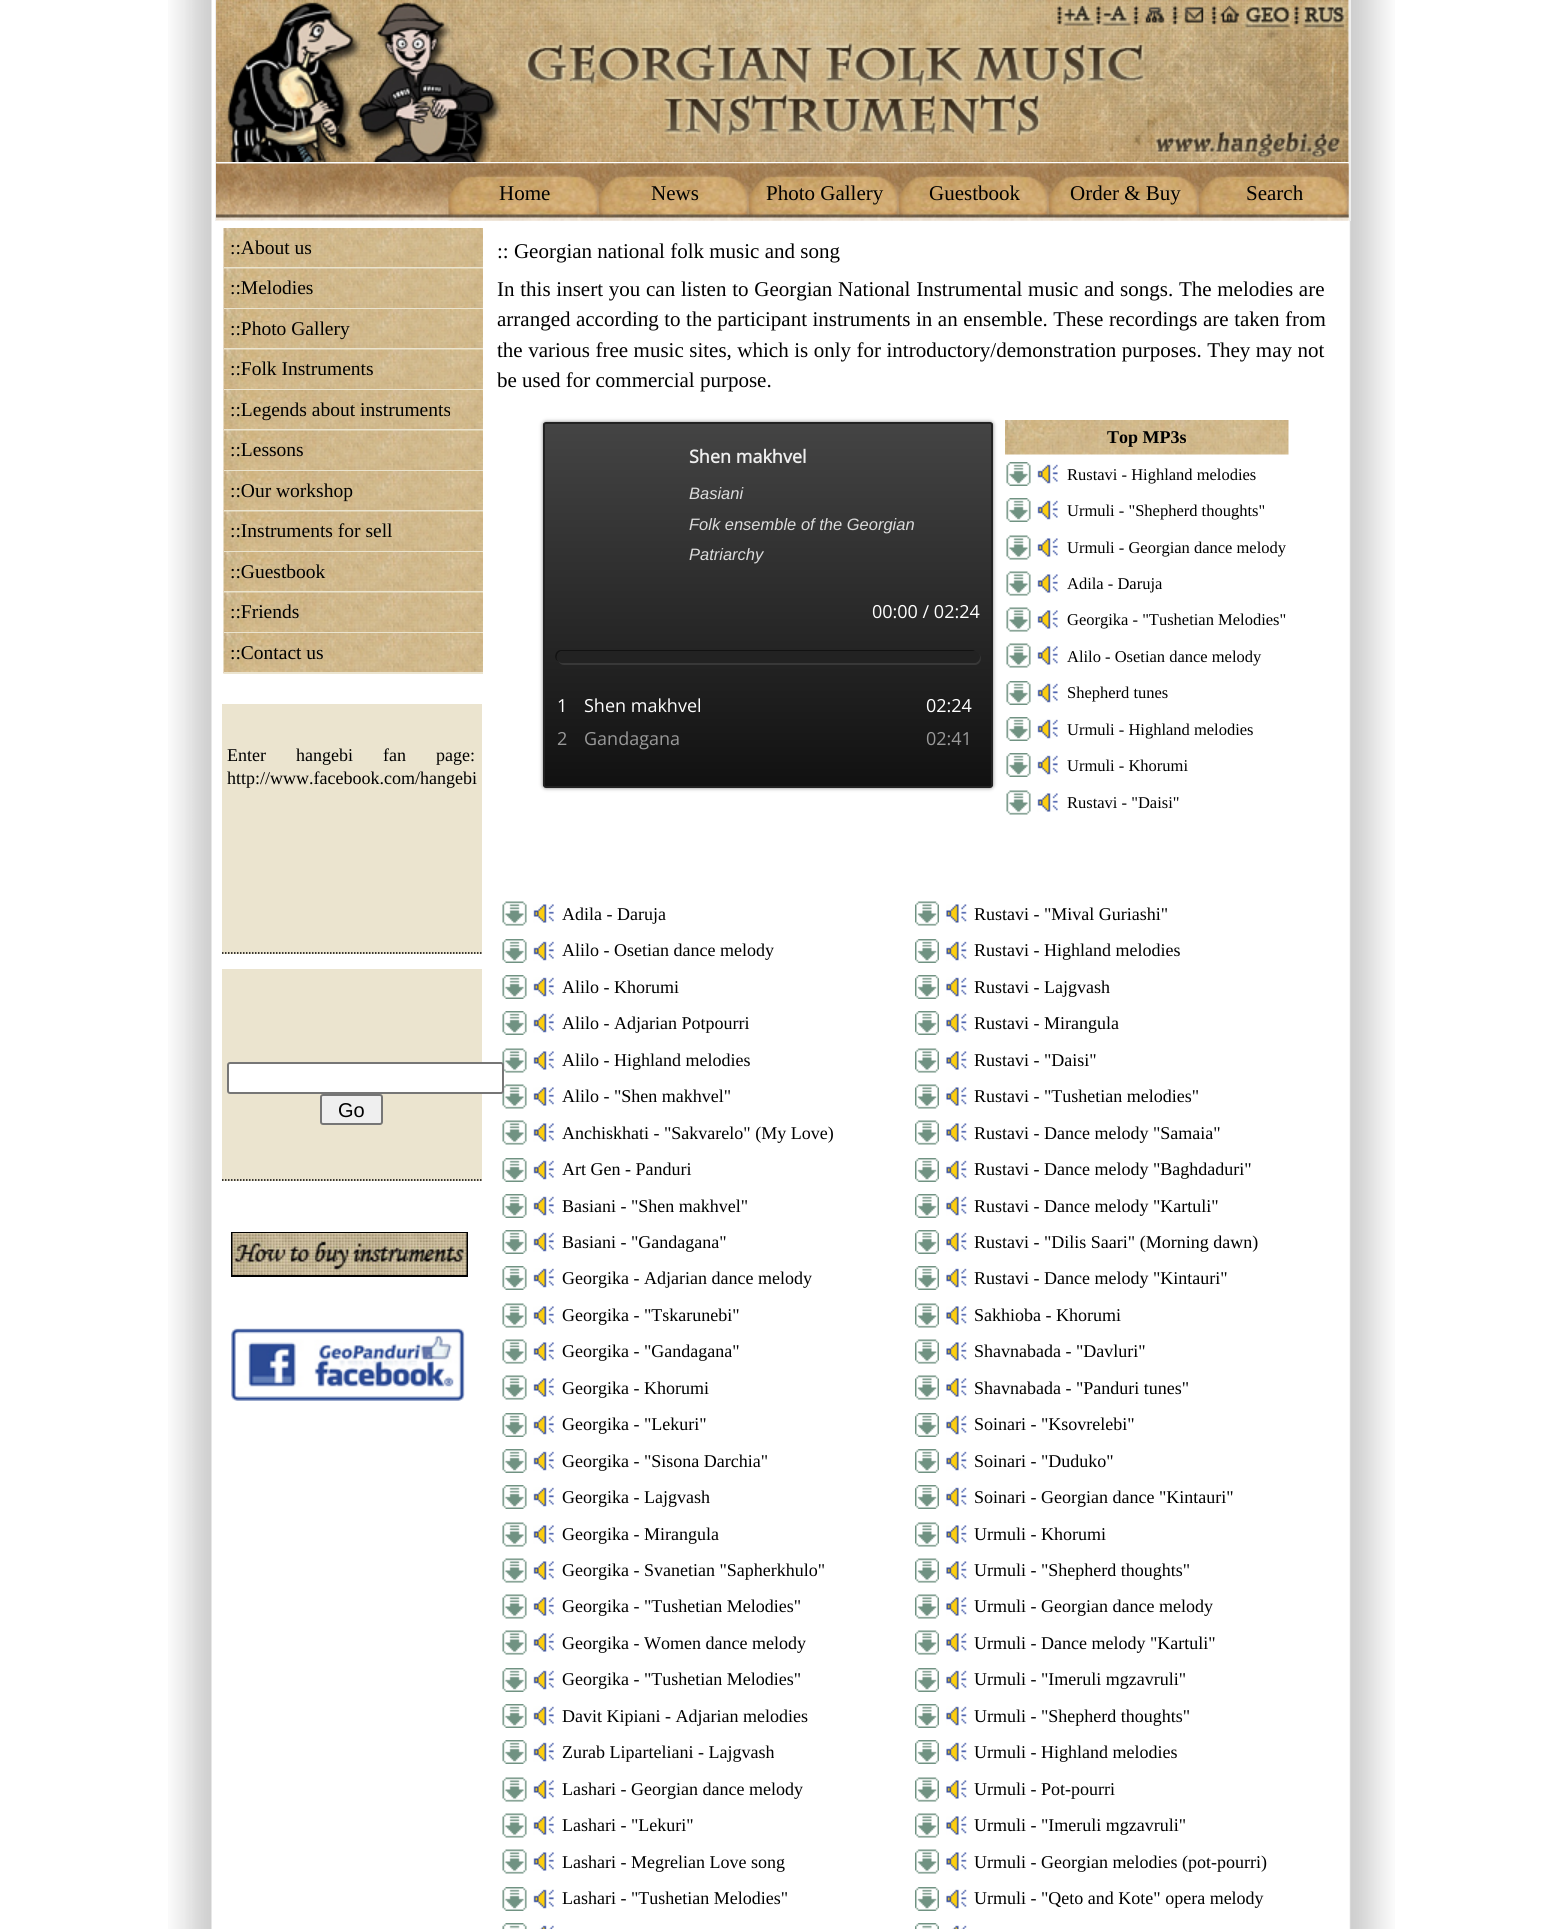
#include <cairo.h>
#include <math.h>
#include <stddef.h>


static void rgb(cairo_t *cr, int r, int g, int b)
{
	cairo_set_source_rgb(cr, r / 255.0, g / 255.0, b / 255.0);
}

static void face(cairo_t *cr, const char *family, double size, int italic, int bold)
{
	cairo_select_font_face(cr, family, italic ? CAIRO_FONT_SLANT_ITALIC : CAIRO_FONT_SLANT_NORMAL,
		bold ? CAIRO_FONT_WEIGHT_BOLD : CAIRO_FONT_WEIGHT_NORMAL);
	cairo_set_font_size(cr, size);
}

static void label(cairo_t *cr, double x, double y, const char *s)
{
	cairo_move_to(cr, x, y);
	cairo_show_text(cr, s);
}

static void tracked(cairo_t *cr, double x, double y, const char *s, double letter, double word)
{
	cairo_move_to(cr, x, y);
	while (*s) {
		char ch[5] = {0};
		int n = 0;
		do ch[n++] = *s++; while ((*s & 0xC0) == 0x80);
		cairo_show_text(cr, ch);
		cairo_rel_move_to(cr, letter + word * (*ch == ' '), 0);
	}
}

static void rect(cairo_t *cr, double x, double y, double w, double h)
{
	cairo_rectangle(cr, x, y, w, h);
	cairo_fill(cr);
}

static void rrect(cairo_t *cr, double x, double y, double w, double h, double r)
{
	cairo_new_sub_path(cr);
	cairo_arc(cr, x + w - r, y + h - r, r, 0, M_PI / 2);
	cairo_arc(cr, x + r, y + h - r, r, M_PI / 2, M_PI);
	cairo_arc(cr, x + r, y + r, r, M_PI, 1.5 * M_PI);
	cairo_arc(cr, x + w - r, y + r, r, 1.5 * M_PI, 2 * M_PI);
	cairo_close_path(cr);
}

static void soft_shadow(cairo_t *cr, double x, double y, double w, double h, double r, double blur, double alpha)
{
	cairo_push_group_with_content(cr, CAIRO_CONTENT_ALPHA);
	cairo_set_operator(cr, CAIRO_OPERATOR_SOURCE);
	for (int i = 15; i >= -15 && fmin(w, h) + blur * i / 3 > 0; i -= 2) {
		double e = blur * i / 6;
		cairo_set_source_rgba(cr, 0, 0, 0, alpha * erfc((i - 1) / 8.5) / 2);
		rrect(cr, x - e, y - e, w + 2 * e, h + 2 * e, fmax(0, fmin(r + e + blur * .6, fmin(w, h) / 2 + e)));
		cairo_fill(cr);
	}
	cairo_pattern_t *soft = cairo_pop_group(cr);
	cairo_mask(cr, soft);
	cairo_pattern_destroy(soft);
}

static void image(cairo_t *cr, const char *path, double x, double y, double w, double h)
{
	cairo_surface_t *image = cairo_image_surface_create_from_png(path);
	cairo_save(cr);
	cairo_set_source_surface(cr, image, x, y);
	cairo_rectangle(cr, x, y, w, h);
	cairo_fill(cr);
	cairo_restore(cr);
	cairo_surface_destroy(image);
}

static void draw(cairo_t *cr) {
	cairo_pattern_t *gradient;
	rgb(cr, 255, 255, 255);
	cairo_paint(cr);
	image(cr, "image0.png", 168, 0, 1227, 1929);
	rgb(cr, 239, 239, 239);
	rect(cr, 1349, 0, 2, 221);
	rect(cr, 215, 0, 2, 221);
	image(cr, "image1.png", 216, 0, 1133, 162);
	rgb(cr, 255, 255, 255);
	rect(cr, 216, 164, 1, 57);
	image(cr, "image2.png", 216, 163, 1133, 58);
	image(cr, "image8.png", 1198, 163, 151, 58);
	image(cr, "image7.png", 1048, 163, 151, 58);
	image(cr, "image6.png", 898, 163, 151, 58);
	image(cr, "image5.png", 748, 163, 151, 58);
	image(cr, "image4.png", 598, 163, 151, 58);
	image(cr, "image3.png", 448, 163, 151, 58);
	face(cr, "Liberation Serif", 21, 0, 0);
	rgb(cr, 0, 0, 0);
	label(cr, 499, 200, "Home");
	label(cr, 651, 200, "News");
	label(cr, 766, 200, "Photo Gallery");
	label(cr, 929, 200, "Guestbook");
	label(cr, 1070, 200, "Order & Buy");
	label(cr, 1246, 200, "Search");
	image(cr, "image9.png", 223, 228, 260, 41);
	rgb(cr, 235, 228, 207);
	rect(cr, 224, 267, 259, 2);
	face(cr, "Liberation Serif", 19.5, 0, 0);
	rgb(cr, 0, 0, 0);
	label(cr, 230, 254, "::About us");
	image(cr, "image10.png", 223, 268, 260, 41);
	rgb(cr, 235, 228, 207);
	rect(cr, 224, 308, 259, 1);
	rgb(cr, 0, 0, 0);
	label(cr, 230, 294, "::Melodies");
	image(cr, "image9.png", 223, 309, 260, 41);
	rgb(cr, 235, 228, 207);
	rect(cr, 224, 348, 259, 2);
	rgb(cr, 0, 0, 0);
	label(cr, 230, 335, "::Photo Gallery");
	image(cr, "image10.png", 223, 349, 260, 41);
	rgb(cr, 235, 228, 207);
	rect(cr, 224, 389, 259, 1);
	rgb(cr, 0, 0, 0);
	label(cr, 230, 375, "::Folk Instruments");
	image(cr, "image9.png", 223, 390, 260, 41);
	rgb(cr, 235, 228, 207);
	rect(cr, 224, 429, 259, 2);
	rgb(cr, 0, 0, 0);
	label(cr, 230, 416, "::Legends about instruments");
	image(cr, "image10.png", 223, 430, 260, 41);
	rgb(cr, 235, 228, 207);
	rect(cr, 224, 470, 259, 1);
	rgb(cr, 0, 0, 0);
	label(cr, 230, 456, "::Lessons");
	image(cr, "image9.png", 223, 471, 260, 41);
	rgb(cr, 235, 228, 207);
	rect(cr, 224, 510, 259, 2);
	rgb(cr, 0, 0, 0);
	label(cr, 230, 497, "::Our workshop");
	image(cr, "image10.png", 223, 511, 260, 41);
	rgb(cr, 235, 228, 207);
	rect(cr, 224, 551, 259, 1);
	rgb(cr, 0, 0, 0);
	label(cr, 230, 537, "::Instruments for sell");
	image(cr, "image9.png", 223, 552, 260, 41);
	rgb(cr, 235, 228, 207);
	rect(cr, 224, 591, 259, 2);
	rgb(cr, 0, 0, 0);
	label(cr, 230, 578, "::Guestbook");
	image(cr, "image10.png", 223, 592, 260, 41);
	rgb(cr, 235, 228, 207);
	rect(cr, 224, 632, 259, 1);
	rgb(cr, 0, 0, 0);
	label(cr, 230, 618, "::Friends");
	image(cr, "image9.png", 223, 633, 260, 41);
	rgb(cr, 235, 228, 207);
	rect(cr, 224, 672, 259, 2);
	rgb(cr, 0, 0, 0);
	label(cr, 230, 659, "::Contact us");
	rgb(cr, 235, 228, 207);
	rect(cr, 222, 704, 260, 250);
	cairo_new_path(cr);
	cairo_move_to(cr, 222, 953);
	cairo_line_to(cr, 481.5, 953);
	rgb(cr, 0, 0, 0);
	cairo_set_line_width(cr, 1.5);
	cairo_set_dash(cr, (double[]){1.5, 1.5}, 2, 0);
	cairo_stroke(cr);
	face(cr, "Liberation Serif", 18, 0, 0);
	tracked(cr, 227, 761, "Enter hangebi fan page:", 0, 25.5);
	label(cr, 227, 784, "http://www.facebook.com/hangebi");
	rgb(cr, 235, 228, 207);
	rect(cr, 222, 969, 260, 212);
	cairo_new_path(cr);
	cairo_move_to(cr, 222, 1180);
	cairo_line_to(cr, 481.5, 1180);
	rgb(cr, 0, 0, 0);
	cairo_stroke(cr);
	image(cr, "image16.png", 502, 1048, 25, 25);
	image(cr, "image16.png", 502, 1084, 25, 25);
	rgb(cr, 255, 255, 255);
	rrect(cr, 228, 1063, 275, 30, 2);
	cairo_fill_preserve(cr);
	rgb(cr, 118, 118, 118);
	cairo_set_line_width(cr, 2);
	cairo_set_dash(cr, NULL, 0, 0);
	cairo_stroke(cr);
	rgb(cr, 239, 239, 239);
	rrect(cr, 321, 1095, 61, 29, 2);
	cairo_fill_preserve(cr);
	rgb(cr, 118, 118, 118);
	cairo_stroke(cr);
	face(cr, "Liberation Sans", 20, 0, 0);
	rgb(cr, 0, 0, 0);
	label(cr, 338, 1117, "Go");
	cairo_rectangle(cr, 232, 1233, 235, 43);
	cairo_stroke(cr);
	image(cr, "image11.png", 232, 1233, 235, 42);
	image(cr, "image12.png", 231, 1328, 234, 73);
	face(cr, "Liberation Serif", 21, 0, 0);
	label(cr, 497, 258, ":: Georgian national folk music and song");
	tracked(cr, 497, 296, "In this insert you can listen to Georgian National Instrumental music and songs. The melodies are", 0, 0.5);
	tracked(cr, 497, 326, "arranged according to the participant instruments in an ensemble. These recordings are taken from", 0, 0.25);
	tracked(cr, 497, 357, "the various free music sites, which is only for introductory/demonstration purposes. They may not", 0, 0.25);
	label(cr, 497, 387, "be used for commercial purpose.");
	image(cr, "image13.png", 1005, 420, 284, 35);
	face(cr, "Liberation Serif", 18, 0, 1);
	label(cr, 1107, 443, "Top MP3s");
	rgb(cr, 0, 0, 0);
	soft_shadow(cr, 543, 422, 450, 366, 3, 2, 0.5);
	cairo_save(cr);
	rrect(cr, 543, 422, 450, 366, 3);
	cairo_clip(cr);
	gradient = cairo_pattern_create_linear(768, 423, 768, 786);
	cairo_pattern_add_color_stop_rgba(gradient, 0, 0.267, 0.267, 0.267, 1);
	cairo_pattern_add_color_stop_rgba(gradient, 1, 0.067, 0.067, 0.067, 1);
	cairo_set_source(cr, gradient);
	cairo_pattern_destroy(gradient);
	rect(cr, 543, 423, 450, 363);
	cairo_restore(cr);
	rrect(cr, 544, 423, 448, 364, 2);
	rgb(cr, 34, 34, 34);
	cairo_stroke(cr);
	face(cr, "Open Sans", 18, 0, 1);
	rgb(cr, 238, 238, 238);
	label(cr, 689, 463, "Shen makhvel");
	face(cr, "Liberation Sans", 16.5, 1, 0);
	rgb(cr, 221, 221, 221);
	label(cr, 689, 499, "Basiani");
	label(cr, 689, 530, "Folk ensemble of the Georgian");
	label(cr, 689, 560, "Patriarchy");
	face(cr, "Open Sans", 18, 0, 0);
	rgb(cr, 255, 255, 255);
	label(cr, 872, 618, "00:00 / 02:24");
	rgb(cr, 56, 56, 56);
	cairo_new_path(cr);
	cairo_move_to(cr, 559, 662);
	cairo_curve_to(cr, 560, 664, 562, 665, 564, 665);
	cairo_line_to(cr, 975, 665);
	cairo_curve_to(cr, 980, 665, 983, 658, 979, 654);
	cairo_curve_to(cr, 981, 658, 978, 663, 974, 663);
	cairo_line_to(cr, 562, 663);
	cairo_curve_to(cr, 561, 663, 560, 662, 559, 662);
	cairo_close_path(cr);
	cairo_fill(cr);
	rgb(cr, 18, 18, 18);
	cairo_new_path(cr);
	cairo_move_to(cr, 561, 650);
	cairo_curve_to(cr, 555, 650, 553, 659, 558, 661);
	cairo_curve_to(cr, 555, 658, 557, 651, 562, 651);
	cairo_line_to(cr, 974, 651);
	cairo_line_to(cr, 976, 652);
	cairo_curve_to(cr, 975, 651, 974, 650, 972, 650);
	cairo_close_path(cr);
	cairo_fill(cr);
	rgb(cr, 34, 34, 34);
	rrect(cr, 557, 651, 423, 12, 6);
	cairo_fill(cr);
	rgb(cr, 255, 255, 255);
	label(cr, 557, 712, "1");
	label(cr, 584, 712, "Shen makhvel");
	label(cr, 926, 712, "02:24");
	rgb(cr, 153, 153, 153);
	label(cr, 557, 745, "2");
	label(cr, 584, 745, "Gandagana");
	label(cr, 926, 745, "02:41");
	image(cr, "image14.png", 1006, 462, 25, 24);
	image(cr, "image15.png", 1037, 464, 21, 20);
	face(cr, "Liberation Serif", 16.5, 0, 0);
	rgb(cr, 0, 0, 0);
	label(cr, 1067, 480, "Rustavi - Highland melodies");
	image(cr, "image14.png", 1006, 498, 25, 24);
	image(cr, "image15.png", 1037, 500, 21, 20);
	label(cr, 1067, 516, "Urmuli - \"Shepherd thoughts\"");
	image(cr, "image16.png", 1006, 535, 25, 25);
	image(cr, "image17.png", 1037, 538, 21, 19);
	label(cr, 1067, 553, "Urmuli - Georgian dance melody");
	image(cr, "image16.png", 1006, 571, 25, 25);
	image(cr, "image17.png", 1037, 574, 21, 19);
	label(cr, 1067, 589, "Adila - Daruja");
	image(cr, "image16.png", 1006, 607, 25, 25);
	image(cr, "image17.png", 1037, 610, 21, 19);
	label(cr, 1067, 625, "Georgika - \"Tushetian Melodies\"");
	image(cr, "image16.png", 1006, 643, 25, 25);
	image(cr, "image17.png", 1037, 646, 21, 19);
	label(cr, 1067, 662, "Alilo - Osetian dance melody");
	image(cr, "image14.png", 1006, 681, 25, 24);
	image(cr, "image15.png", 1037, 683, 21, 20);
	label(cr, 1067, 698, "Shepherd tunes");
	image(cr, "image14.png", 1006, 717, 25, 24);
	image(cr, "image15.png", 1037, 719, 21, 20);
	label(cr, 1067, 735, "Urmuli - Highland melodies");
	image(cr, "image14.png", 1006, 753, 25, 24);
	image(cr, "image15.png", 1037, 755, 21, 20);
	label(cr, 1067, 771, "Urmuli - Khorumi");
	image(cr, "image16.png", 1006, 790, 25, 25);
	image(cr, "image17.png", 1037, 793, 21, 19);
	label(cr, 1067, 808, "Rustavi - \"Daisi\"");
	image(cr, "image16.png", 502, 901, 25, 25);
	image(cr, "image18.png", 533, 904, 21, 19);
	face(cr, "Liberation Serif", 18, 0, 0);
	label(cr, 562, 920, "Adila - Daruja");
	image(cr, "image19.png", 915, 901, 24, 25);
	image(cr, "image20.png", 946, 904, 21, 19);
	label(cr, 974, 920, "Rustavi - \"Mival Guriashi\"");
	image(cr, "image14.png", 502, 939, 25, 24);
	image(cr, "image21.png", 533, 941, 21, 20);
	label(cr, 562, 956, "Alilo - Osetian dance melody");
	image(cr, "image22.png", 915, 939, 24, 24);
	image(cr, "image23.png", 946, 941, 21, 20);
	label(cr, 974, 956, "Rustavi - Highland melodies");
	image(cr, "image14.png", 502, 975, 25, 24);
	image(cr, "image21.png", 533, 977, 21, 20);
	label(cr, 562, 993, "Alilo - Khorumi");
	image(cr, "image22.png", 915, 975, 24, 24);
	image(cr, "image23.png", 946, 977, 21, 20);
	label(cr, 974, 993, "Rustavi - Lajgvash");
	image(cr, "image14.png", 502, 1011, 25, 24);
	image(cr, "image21.png", 533, 1013, 21, 20);
	label(cr, 562, 1029, "Alilo - Adjarian Potpourri");
	image(cr, "image22.png", 915, 1011, 24, 24);
	image(cr, "image23.png", 946, 1013, 21, 20);
	label(cr, 974, 1029, "Rustavi - Mirangula");
	image(cr, "image18.png", 533, 1051, 21, 19);
	label(cr, 562, 1066, "Alilo - Highland melodies");
	image(cr, "image19.png", 915, 1048, 24, 25);
	image(cr, "image20.png", 946, 1051, 21, 19);
	label(cr, 974, 1066, "Rustavi - \"Daisi\"");
	image(cr, "image18.png", 533, 1087, 21, 19);
	label(cr, 562, 1102, "Alilo - \"Shen makhvel\"");
	image(cr, "image19.png", 915, 1084, 24, 25);
	image(cr, "image20.png", 946, 1087, 21, 19);
	label(cr, 974, 1102, "Rustavi - \"Tushetian melodies\"");
	image(cr, "image16.png", 502, 1120, 25, 25);
	image(cr, "image18.png", 533, 1123, 21, 19);
	label(cr, 562, 1139, "Anchiskhati - \"Sakvarelo\" (My Love)");
	image(cr, "image19.png", 915, 1120, 24, 25);
	image(cr, "image20.png", 946, 1123, 21, 19);
	label(cr, 974, 1139, "Rustavi - Dance melody \"Samaia\"");
	image(cr, "image14.png", 502, 1158, 25, 24);
	image(cr, "image21.png", 533, 1160, 21, 20);
	label(cr, 562, 1175, "Art Gen - Panduri");
	image(cr, "image22.png", 915, 1158, 24, 24);
	image(cr, "image23.png", 946, 1160, 21, 20);
	label(cr, 974, 1175, "Rustavi - Dance melody \"Baghdaduri\"");
	image(cr, "image14.png", 502, 1194, 25, 24);
	image(cr, "image21.png", 533, 1196, 21, 20);
	label(cr, 562, 1212, "Basiani - \"Shen makhvel\"");
	image(cr, "image22.png", 915, 1194, 24, 24);
	image(cr, "image23.png", 946, 1196, 21, 20);
	label(cr, 974, 1212, "Rustavi - Dance melody \"Kartuli\"");
	image(cr, "image14.png", 502, 1230, 25, 24);
	image(cr, "image21.png", 533, 1232, 21, 20);
	label(cr, 562, 1248, "Basiani - \"Gandagana\"");
	image(cr, "image22.png", 915, 1230, 24, 24);
	image(cr, "image23.png", 946, 1232, 21, 20);
	label(cr, 974, 1248, "Rustavi - \"Dilis Saari\" (Morning dawn)");
	image(cr, "image14.png", 502, 1266, 25, 24);
	image(cr, "image21.png", 533, 1268, 21, 20);
	label(cr, 562, 1284, "Georgika - Adjarian dance melody");
	image(cr, "image22.png", 915, 1266, 24, 24);
	image(cr, "image23.png", 946, 1268, 21, 20);
	label(cr, 974, 1284, "Rustavi - Dance melody \"Kintauri\"");
	image(cr, "image16.png", 502, 1303, 25, 25);
	image(cr, "image18.png", 533, 1306, 21, 19);
	label(cr, 562, 1321, "Georgika - \"Tskarunebi\"");
	image(cr, "image19.png", 915, 1303, 24, 25);
	image(cr, "image20.png", 946, 1306, 21, 19);
	label(cr, 974, 1321, "Sakhioba - Khorumi");
	image(cr, "image16.png", 502, 1339, 25, 25);
	image(cr, "image18.png", 533, 1342, 21, 19);
	label(cr, 562, 1357, "Georgika - \"Gandagana\"");
	image(cr, "image19.png", 915, 1339, 24, 25);
	image(cr, "image20.png", 946, 1342, 21, 19);
	label(cr, 974, 1357, "Shavnabada - \"Davluri\"");
	image(cr, "image16.png", 502, 1375, 25, 25);
	image(cr, "image18.png", 533, 1378, 21, 19);
	label(cr, 562, 1394, "Georgika - Khorumi");
	image(cr, "image19.png", 915, 1375, 24, 25);
	image(cr, "image20.png", 946, 1378, 21, 19);
	label(cr, 974, 1394, "Shavnabada - \"Panduri tunes\"");
	image(cr, "image14.png", 502, 1413, 25, 24);
	image(cr, "image21.png", 533, 1415, 21, 20);
	label(cr, 562, 1430, "Georgika - \"Lekuri\"");
	image(cr, "image22.png", 915, 1413, 24, 24);
	image(cr, "image23.png", 946, 1415, 21, 20);
	label(cr, 974, 1430, "Soinari - \"Ksovrelebi\"");
	image(cr, "image14.png", 502, 1449, 25, 24);
	image(cr, "image21.png", 533, 1451, 21, 20);
	label(cr, 562, 1467, "Georgika - \"Sisona Darchia\"");
	image(cr, "image22.png", 915, 1449, 24, 24);
	image(cr, "image23.png", 946, 1451, 21, 20);
	label(cr, 974, 1467, "Soinari - \"Duduko\"");
	image(cr, "image14.png", 502, 1485, 25, 24);
	image(cr, "image21.png", 533, 1487, 21, 20);
	label(cr, 562, 1503, "Georgika - Lajgvash");
	image(cr, "image22.png", 915, 1485, 24, 24);
	image(cr, "image23.png", 946, 1487, 21, 20);
	label(cr, 974, 1503, "Soinari - Georgian dance \"Kintauri\"");
	image(cr, "image16.png", 502, 1522, 25, 25);
	image(cr, "image18.png", 533, 1525, 21, 19);
	label(cr, 562, 1540, "Georgika - Mirangula");
	image(cr, "image19.png", 915, 1522, 24, 25);
	image(cr, "image20.png", 946, 1525, 21, 19);
	label(cr, 974, 1540, "Urmuli - Khorumi");
	image(cr, "image16.png", 502, 1558, 25, 25);
	image(cr, "image18.png", 533, 1561, 21, 19);
	label(cr, 562, 1576, "Georgika - Svanetian \"Sapherkhulo\"");
	image(cr, "image19.png", 915, 1558, 24, 25);
	image(cr, "image20.png", 946, 1561, 21, 19);
	label(cr, 974, 1576, "Urmuli - \"Shepherd thoughts\"");
	image(cr, "image16.png", 502, 1594, 25, 25);
	image(cr, "image18.png", 533, 1597, 21, 19);
	label(cr, 562, 1612, "Georgika - \"Tushetian Melodies\"");
	image(cr, "image19.png", 915, 1594, 24, 25);
	image(cr, "image20.png", 946, 1597, 21, 19);
	label(cr, 974, 1612, "Urmuli - Georgian dance melody");
	image(cr, "image16.png", 502, 1630, 25, 25);
	image(cr, "image18.png", 533, 1633, 21, 19);
	label(cr, 562, 1649, "Georgika - Women dance melody");
	image(cr, "image19.png", 915, 1630, 24, 25);
	image(cr, "image20.png", 946, 1633, 21, 19);
	label(cr, 974, 1649, "Urmuli - Dance melody \"Kartuli\"");
	image(cr, "image14.png", 502, 1668, 25, 24);
	image(cr, "image21.png", 533, 1670, 21, 20);
	label(cr, 562, 1685, "Georgika - \"Tushetian Melodies\"");
	image(cr, "image22.png", 915, 1668, 24, 24);
	image(cr, "image23.png", 946, 1670, 21, 20);
	label(cr, 974, 1685, "Urmuli - \"Imeruli mgzavruli\"");
	image(cr, "image14.png", 502, 1704, 25, 24);
	image(cr, "image21.png", 533, 1706, 21, 20);
	label(cr, 562, 1722, "Davit Kipiani - Adjarian melodies");
	image(cr, "image22.png", 915, 1704, 24, 24);
	image(cr, "image23.png", 946, 1706, 21, 20);
	label(cr, 974, 1722, "Urmuli - \"Shepherd thoughts\"");
	image(cr, "image14.png", 502, 1740, 25, 24);
	image(cr, "image21.png", 533, 1742, 21, 20);
	label(cr, 562, 1758, "Zurab Liparteliani - Lajgvash");
	image(cr, "image22.png", 915, 1740, 24, 24);
	image(cr, "image23.png", 946, 1742, 21, 20);
	label(cr, 974, 1758, "Urmuli - Highland melodies");
	image(cr, "image16.png", 502, 1777, 25, 25);
	image(cr, "image18.png", 533, 1780, 21, 19);
	label(cr, 562, 1795, "Lashari - Georgian dance melody");
	image(cr, "image19.png", 915, 1777, 24, 25);
	image(cr, "image20.png", 946, 1780, 21, 19);
	label(cr, 974, 1795, "Urmuli - Pot-pourri");
	image(cr, "image16.png", 502, 1813, 25, 25);
	image(cr, "image18.png", 533, 1816, 21, 19);
	label(cr, 562, 1831, "Lashari - \"Lekuri\"");
	image(cr, "image19.png", 915, 1813, 24, 25);
	image(cr, "image20.png", 946, 1816, 21, 19);
	label(cr, 974, 1831, "Urmuli - \"Imeruli mgzavruli\"");
	image(cr, "image16.png", 502, 1849, 25, 25);
	image(cr, "image18.png", 533, 1852, 21, 19);
	label(cr, 562, 1868, "Lashari - Megrelian Love song");
	image(cr, "image19.png", 915, 1849, 24, 25);
	image(cr, "image20.png", 946, 1852, 21, 19);
	label(cr, 974, 1868, "Urmuli - Georgian melodies (pot-pourri)");
	image(cr, "image14.png", 502, 1887, 25, 24);
	image(cr, "image21.png", 533, 1889, 21, 20);
	label(cr, 562, 1904, "Lashari - \"Tushetian Melodies\"");
	image(cr, "image22.png", 915, 1887, 24, 24);
	image(cr, "image23.png", 946, 1889, 21, 20);
	label(cr, 974, 1904, "Urmuli - \"Qeto and Kote\" opera melody");
	image(cr, "image24.png", 502, 1923, 25, 6);
	image(cr, "image25.png", 539, 1925, 15, 4);
	image(cr, "image26.png", 915, 1923, 24, 6);
	image(cr, "image27.png", 952, 1925, 15, 4);
}

int main(void) {
	cairo_surface_t *surface = cairo_image_surface_create(CAIRO_FORMAT_RGB24, 1562, 1929);
	cairo_t *cr = cairo_create(surface);
	cairo_font_options_t *options = cairo_font_options_create();
	cairo_font_options_set_hint_metrics(options, CAIRO_HINT_METRICS_OFF);
	cairo_font_options_set_hint_style(options, CAIRO_HINT_STYLE_NONE);
	cairo_set_font_options(cr, options);
	cairo_set_miter_limit(cr, 4);
	draw(cr);
	cairo_surface_write_to_png(surface, "render.png");
	cairo_font_options_destroy(options);
	cairo_destroy(cr);
	cairo_surface_destroy(surface);
	return 0;
}
